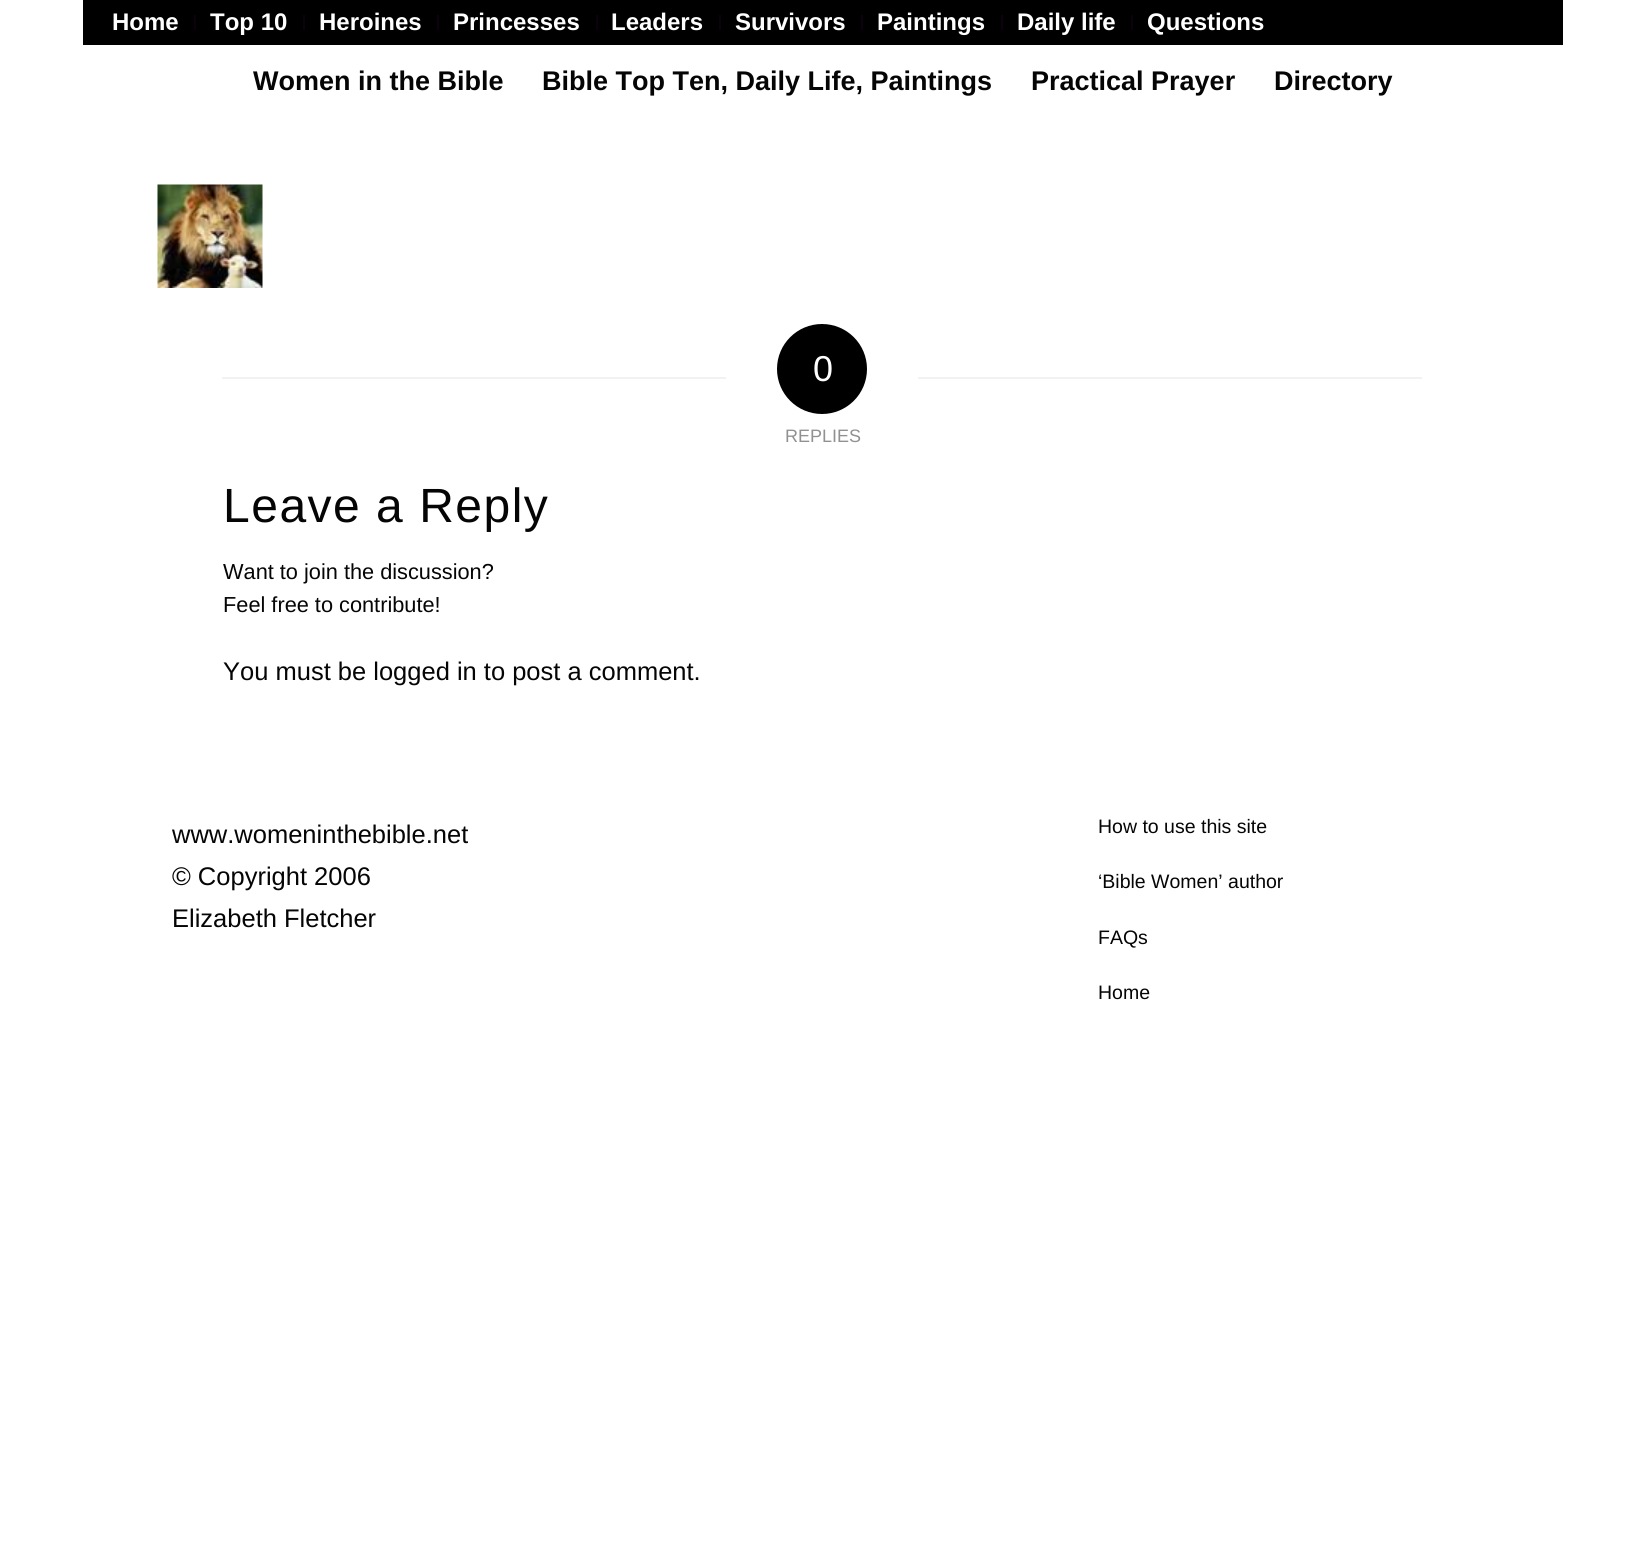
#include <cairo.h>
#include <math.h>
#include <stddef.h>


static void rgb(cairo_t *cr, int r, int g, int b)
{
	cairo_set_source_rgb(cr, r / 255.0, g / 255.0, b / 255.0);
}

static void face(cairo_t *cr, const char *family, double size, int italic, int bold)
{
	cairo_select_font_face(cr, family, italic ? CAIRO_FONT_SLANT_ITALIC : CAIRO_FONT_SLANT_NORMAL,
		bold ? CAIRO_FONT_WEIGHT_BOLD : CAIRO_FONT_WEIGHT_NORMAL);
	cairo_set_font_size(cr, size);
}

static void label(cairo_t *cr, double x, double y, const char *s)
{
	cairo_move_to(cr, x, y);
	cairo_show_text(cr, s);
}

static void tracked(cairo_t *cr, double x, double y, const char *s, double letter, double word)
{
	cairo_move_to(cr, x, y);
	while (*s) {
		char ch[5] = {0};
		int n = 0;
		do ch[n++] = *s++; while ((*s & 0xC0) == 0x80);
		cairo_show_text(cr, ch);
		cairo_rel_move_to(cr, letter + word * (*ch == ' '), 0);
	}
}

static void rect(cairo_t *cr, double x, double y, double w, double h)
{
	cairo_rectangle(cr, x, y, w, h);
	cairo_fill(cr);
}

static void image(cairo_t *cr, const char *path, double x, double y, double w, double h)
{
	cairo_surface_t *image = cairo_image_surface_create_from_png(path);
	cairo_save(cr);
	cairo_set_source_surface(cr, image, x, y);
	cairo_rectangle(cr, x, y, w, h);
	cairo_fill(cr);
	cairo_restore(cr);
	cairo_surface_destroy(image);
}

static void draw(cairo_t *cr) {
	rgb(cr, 255, 255, 255);
	cairo_paint(cr);
	rgb(cr, 0, 0, 0);
	rect(cr, 83, 0, 1480, 45);
	rgb(cr, 13, 1, 13);
	rect(cr, 194, 15, 2, 15);
	face(cr, "Liberation Sans", 24, 0, 1);
	rgb(cr, 255, 255, 255);
	label(cr, 112, 30, "Home");
	rgb(cr, 13, 1, 13);
	rect(cr, 303, 15, 2, 15);
	rgb(cr, 255, 255, 255);
	label(cr, 210, 30, "Top 10");
	rgb(cr, 13, 1, 13);
	rect(cr, 437, 15, 2, 15);
	rgb(cr, 255, 255, 255);
	label(cr, 319, 30, "Heroines");
	rgb(cr, 13, 1, 13);
	rect(cr, 596, 15, 2, 15);
	rgb(cr, 255, 255, 255);
	label(cr, 453, 30, "Princesses");
	rgb(cr, 13, 1, 13);
	rect(cr, 719, 15, 2, 15);
	rgb(cr, 255, 255, 255);
	label(cr, 611, 30, "Leaders");
	rgb(cr, 13, 1, 13);
	rect(cr, 861, 15, 2, 15);
	rgb(cr, 255, 255, 255);
	label(cr, 735, 30, "Survivors");
	rgb(cr, 13, 1, 13);
	rect(cr, 1001, 15, 2, 15);
	rgb(cr, 255, 255, 255);
	label(cr, 877, 30, "Paintings");
	rgb(cr, 13, 1, 13);
	rect(cr, 1131, 15, 2, 15);
	rgb(cr, 255, 255, 255);
	label(cr, 1017, 30, "Daily life");
	label(cr, 1147, 30, "Questions");
	face(cr, "Liberation Sans", 27, 0, 1);
	rgb(cr, 5, 5, 5);
	label(cr, 253, 90, "Women in the Bible");
	label(cr, 542, 90, "Bible Top Ten, Daily Life, Paintings");
	label(cr, 1031, 90, "Practical Prayer");
	label(cr, 1274, 90, "Directory");
	image(cr, "image0.png", 157, 184, 106, 104);
	rgb(cr, 242, 242, 242);
	rect(cr, 222, 377, 504, 2);
	rgb(cr, 0, 0, 0);
	cairo_arc(cr, 822, 369, 45, 0, 2 * M_PI);
	cairo_fill(cr);
	face(cr, "Liberation Sans", 36, 0, 0);
	rgb(cr, 255, 255, 255);
	label(cr, 813, 381, "0");
	rgb(cr, 242, 242, 242);
	rect(cr, 918, 377, 504, 2);
	face(cr, "Liberation Sans", 18, 0, 0);
	rgb(cr, 145, 145, 145);
	label(cr, 785, 442, "REPLIES");
	face(cr, "Liberation Sans", 48, 0, 0);
	rgb(cr, 5, 5, 5);
	tracked(cr, 223, 522, "Leave a Reply", 1.5, 0);
	face(cr, "Liberation Sans", 21.75, 0, 0);
	label(cr, 223, 579, "Want to join the discussion?");
	label(cr, 223, 612, "Feel free to contribute!");
	face(cr, "Liberation Sans", 25.5, 0, 0);
	label(cr, 223, 680, "You must be logged in to post a comment.");
	label(cr, 172, 843, "www.womeninthebible.net");
	label(cr, 172, 885, "© Copyright 2006");
	label(cr, 172, 927, "Elizabeth Fletcher");
	face(cr, "Liberation Sans", 19.5, 0, 0);
	label(cr, 1098, 833, "How to use this site");
	label(cr, 1098, 888, "‘Bible Women’ author");
	label(cr, 1098, 944, "FAQs");
	label(cr, 1098, 999, "Home");
}

int main(void) {
	cairo_surface_t *surface = cairo_image_surface_create(CAIRO_FORMAT_RGB24, 1645, 1556);
	cairo_t *cr = cairo_create(surface);
	cairo_font_options_t *options = cairo_font_options_create();
	cairo_font_options_set_hint_metrics(options, CAIRO_HINT_METRICS_OFF);
	cairo_font_options_set_hint_style(options, CAIRO_HINT_STYLE_NONE);
	cairo_set_font_options(cr, options);
	cairo_set_miter_limit(cr, 4);
	draw(cr);
	cairo_surface_write_to_png(surface, "render.png");
	cairo_font_options_destroy(options);
	cairo_destroy(cr);
	cairo_surface_destroy(surface);
	return 0;
}
